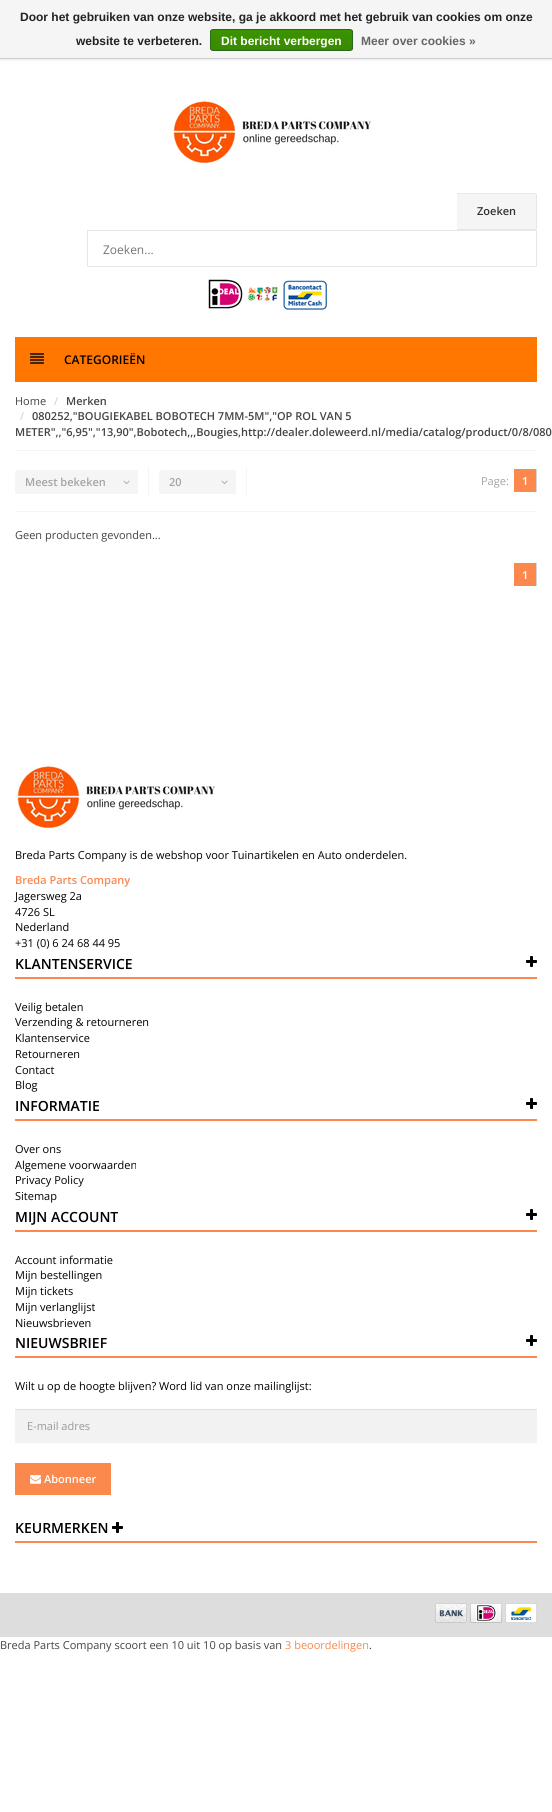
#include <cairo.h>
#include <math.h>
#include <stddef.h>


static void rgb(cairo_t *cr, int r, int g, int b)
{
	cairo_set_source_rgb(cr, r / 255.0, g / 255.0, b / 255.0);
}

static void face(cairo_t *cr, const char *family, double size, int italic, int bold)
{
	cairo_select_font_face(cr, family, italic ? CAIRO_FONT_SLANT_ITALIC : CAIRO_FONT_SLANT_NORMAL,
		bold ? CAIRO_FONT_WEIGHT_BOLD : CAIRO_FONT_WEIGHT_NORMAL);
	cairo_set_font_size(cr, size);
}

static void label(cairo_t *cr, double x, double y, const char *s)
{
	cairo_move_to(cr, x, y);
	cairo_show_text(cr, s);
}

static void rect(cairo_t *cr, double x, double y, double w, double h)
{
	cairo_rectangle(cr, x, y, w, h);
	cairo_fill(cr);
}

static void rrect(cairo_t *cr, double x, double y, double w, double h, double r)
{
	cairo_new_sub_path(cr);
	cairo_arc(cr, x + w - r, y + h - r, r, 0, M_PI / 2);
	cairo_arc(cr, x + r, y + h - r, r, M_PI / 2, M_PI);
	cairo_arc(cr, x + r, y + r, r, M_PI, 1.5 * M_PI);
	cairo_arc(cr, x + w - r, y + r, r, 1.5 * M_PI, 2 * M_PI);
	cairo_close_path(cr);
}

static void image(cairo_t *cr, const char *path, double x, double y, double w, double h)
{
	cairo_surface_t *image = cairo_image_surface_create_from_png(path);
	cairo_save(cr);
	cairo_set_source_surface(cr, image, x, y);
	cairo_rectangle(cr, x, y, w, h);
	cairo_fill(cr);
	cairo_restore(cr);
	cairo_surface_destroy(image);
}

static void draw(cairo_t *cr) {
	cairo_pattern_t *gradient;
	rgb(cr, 255, 255, 255);
	cairo_paint(cr);
	rgb(cr, 245, 245, 245);
	rect(cr, 0, 0, 552, 58);
	rgb(cr, 204, 204, 204);
	rect(cr, 0, 58, 552, 1);
	face(cr, "Liberation Sans", 12, 0, 1);
	rgb(cr, 34, 34, 34);
	label(cr, 20, 21, "Door het gebruiken van onze website, ga je akkoord met het gebruik van cookies om onze");
	label(cr, 76, 45, "website te verbeteren.");
	cairo_save(cr);
	rrect(cr, 210, 29, 143, 22, 3);
	cairo_clip(cr);
	gradient = cairo_pattern_create_linear(282, 30, 282, 50);
	cairo_pattern_add_color_stop_rgba(gradient, 0, 0.235, 0.576, 0, 1);
	cairo_pattern_add_color_stop_rgba(gradient, 1, 0.224, 0.541, 0, 1);
	cairo_set_source(cr, gradient);
	cairo_pattern_destroy(gradient);
	rect(cr, 210, 30, 143, 20);
	cairo_restore(cr);
	rrect(cr, 210.5, 29.5, 142, 21, 2.5);
	rgb(cr, 41, 105, 29);
	cairo_set_line_width(cr, 1);
	cairo_stroke(cr);
	rgb(cr, 255, 255, 255);
	label(cr, 221, 45, "Dit bericht verbergen");
	rgb(cr, 102, 102, 102);
	label(cr, 361, 45, "Meer over cookies »");
	rgb(cr, 244, 244, 244);
	rect(cr, 0, 59, 552, 2);
	image(cr, "image0.png", 173, 101, 198, 62);
	rgb(cr, 245, 245, 245);
	cairo_new_path(cr);
	cairo_move_to(cr, 457, 193);
	cairo_line_to(cr, 535, 193);
	cairo_curve_to(cr, 536, 193, 537, 194, 537, 195);
	cairo_line_to(cr, 537, 228);
	cairo_curve_to(cr, 537, 229, 536, 230, 535, 230);
	cairo_line_to(cr, 457, 230);
	cairo_close_path(cr);
	cairo_fill(cr);
	rgb(cr, 231, 231, 231);
	rect(cr, 457, 193, 79, 1);
	rect(cr, 536, 194, 1, 35);
	rect(cr, 457, 229, 79, 1);
	face(cr, "Open Sans SemiBold", 11, 0, 0);
	rgb(cr, 51, 51, 51);
	label(cr, 477, 215, "Zoeken");
	cairo_rectangle(cr, 87.5, 230.5, 449, 36);
	rgb(cr, 231, 231, 231);
	cairo_stroke(cr);
	face(cr, "Open Sans", 12, 0, 0);
	rgb(cr, 117, 117, 117);
	label(cr, 103, 254, "Zoeken...");
	image(cr, "image1.png", 208, 279, 119, 31);
	rgb(cr, 255, 119, 0);
	rect(cr, 15, 337, 522, 45);
	image(cr, "image2.png", 30, 353, 14, 11);
	face(cr, "Open Sans SemiBold", 12, 0, 0);
	rgb(cr, 0, 0, 0);
	label(cr, 64, 364, "CATEGORIEËN");
	face(cr, "Open Sans", 11, 0, 0);
	rgb(cr, 68, 68, 68);
	label(cr, 15, 405, "Home");
	rgb(cr, 204, 204, 204);
	label(cr, 54, 405, "/");
	face(cr, "Open Sans SemiBold", 11, 0, 0);
	rgb(cr, 68, 68, 68);
	label(cr, 66, 405, "Merken");
	face(cr, "Open Sans", 11, 0, 0);
	rgb(cr, 204, 204, 204);
	label(cr, 20, 420, "/");
	face(cr, "Open Sans SemiBold", 11, 0, 0);
	rgb(cr, 68, 68, 68);
	label(cr, 32, 420, "080252,\"BOUGIEKABEL BOBOTECH 7MM-5M\",\"OP ROL VAN 5");
	label(cr, 15, 436, "METER\",,\"6,95\",\"13,90\",Bobotech,,,Bougies,http://dealer.doleweerd.nl/media/catalog/product/0/8/080");
	rgb(cr, 245, 245, 245);
	rect(cr, 15, 450, 522, 1);
	rect(cr, 15, 511, 522, 1);
	rect(cr, 148, 466, 1, 30);
	cairo_new_path(cr);
	cairo_move_to(cr, 17, 470);
	cairo_line_to(cr, 116, 470);
	cairo_line_to(cr, 116, 494);
	cairo_line_to(cr, 17, 494);
	cairo_curve_to(cr, 16, 494, 15, 493, 15, 492);
	cairo_line_to(cr, 15, 472);
	cairo_curve_to(cr, 15, 471, 16, 470, 17, 470);
	cairo_close_path(cr);
	cairo_fill(cr);
	rgb(cr, 164, 164, 164);
	label(cr, 25, 486, "Meest bekeken");
	rgb(cr, 245, 245, 245);
	rect(cr, 116, 470, 22, 24);
	image(cr, "image3.png", 123, 480, 7, 4);
	rect(cr, 246, 466, 1, 30);
	cairo_new_path(cr);
	cairo_move_to(cr, 161, 470);
	cairo_line_to(cr, 214, 470);
	cairo_line_to(cr, 214, 494);
	cairo_line_to(cr, 161, 494);
	cairo_curve_to(cr, 160, 494, 159, 493, 159, 492);
	cairo_line_to(cr, 159, 472);
	cairo_curve_to(cr, 159, 471, 160, 470, 161, 470);
	cairo_close_path(cr);
	cairo_fill(cr);
	rgb(cr, 164, 164, 164);
	label(cr, 169, 486, "20");
	rgb(cr, 245, 245, 245);
	rect(cr, 214, 470, 22, 24);
	image(cr, "image3.png", 221, 480, 7, 4);
	face(cr, "Open Sans", 11, 0, 0);
	rgb(cr, 164, 164, 164);
	label(cr, 481, 485, "Page:");
	rgb(cr, 251, 136, 77);
	rect(cr, 514, 469, 22, 23);
	rgb(cr, 213, 213, 213);
	rect(cr, 536, 469, 1, 23);
	face(cr, "Open Sans SemiBold", 11, 0, 0);
	rgb(cr, 255, 255, 255);
	label(cr, 522, 485, "1");
	face(cr, "Open Sans", 11, 0, 0);
	rgb(cr, 68, 68, 68);
	label(cr, 15, 539, "Geen producten gevonden...");
	rgb(cr, 251, 136, 77);
	rect(cr, 514, 563, 22, 23);
	rgb(cr, 213, 213, 213);
	rect(cr, 536, 563, 1, 23);
	face(cr, "Open Sans SemiBold", 11, 0, 0);
	rgb(cr, 255, 255, 255);
	label(cr, 522, 579, "1");
	image(cr, "image0.png", 17, 766, 198, 62);
	face(cr, "Open Sans", 11, 0, 0);
	rgb(cr, 0, 0, 0);
	label(cr, 15, 859, "Breda Parts Company is de webshop voor Tuinartikelen en Auto onderdelen.");
	face(cr, "Open Sans SemiBold", 11, 0, 0);
	rgb(cr, 251, 136, 77);
	label(cr, 15, 884, "Breda Parts Company");
	face(cr, "Open Sans", 11, 0, 0);
	rgb(cr, 0, 0, 0);
	label(cr, 15, 900, "Jagersweg 2a");
	label(cr, 15, 916, "4726 SL");
	label(cr, 15, 931, "Nederland");
	label(cr, 15, 947, "+31 (0) 6 24 68 44 95");
	face(cr, "Open Sans SemiBold", 14, 0, 0);
	label(cr, 15, 969, "KLANTENSERVICE");
	image(cr, "image4.png", 526, 956, 11, 11);
	rgb(cr, 251, 136, 77);
	rect(cr, 15, 977, 522, 2);
	face(cr, "Open Sans", 11, 0, 0);
	rgb(cr, 0, 0, 0);
	label(cr, 15, 1011, "Veilig betalen");
	label(cr, 15, 1026, "Verzending & retourneren");
	label(cr, 15, 1042, "Klantenservice");
	label(cr, 15, 1058, "Retourneren");
	label(cr, 15, 1074, "Contact");
	label(cr, 15, 1089, "Blog");
	face(cr, "Open Sans SemiBold", 14, 0, 0);
	label(cr, 15, 1111, "INFORMATIE");
	image(cr, "image4.png", 526, 1098, 11, 11);
	rgb(cr, 251, 136, 77);
	rect(cr, 15, 1119, 522, 2);
	face(cr, "Open Sans", 11, 0, 0);
	rgb(cr, 0, 0, 0);
	label(cr, 15, 1153, "Over ons");
	label(cr, 15, 1169, "Algemene voorwaarden");
	label(cr, 15, 1184, "Privacy Policy");
	label(cr, 15, 1200, "Sitemap");
	face(cr, "Open Sans SemiBold", 14, 0, 0);
	label(cr, 15, 1222, "MIJN ACCOUNT");
	image(cr, "image4.png", 526, 1209, 11, 11);
	rgb(cr, 251, 136, 77);
	rect(cr, 15, 1230, 522, 2);
	face(cr, "Open Sans", 11, 0, 0);
	rgb(cr, 0, 0, 0);
	label(cr, 15, 1264, "Account informatie");
	label(cr, 15, 1279, "Mijn bestellingen");
	label(cr, 15, 1295, "Mijn tickets");
	label(cr, 15, 1311, "Mijn verlanglijst");
	label(cr, 15, 1327, "Nieuwsbrieven");
	face(cr, "Open Sans SemiBold", 14, 0, 0);
	label(cr, 15, 1348, "NIEUWSBRIEF");
	image(cr, "image4.png", 526, 1335, 11, 11);
	rgb(cr, 251, 136, 77);
	rect(cr, 15, 1356, 522, 2);
	face(cr, "Open Sans", 11, 0, 0);
	rgb(cr, 0, 0, 0);
	label(cr, 15, 1390, "Wilt u op de hoogte blijven? Word lid van onze mailinglijst:");
	rgb(cr, 242, 242, 242);
	rect(cr, 15, 1410, 522, 33);
	rgb(cr, 224, 224, 224);
	rect(cr, 15, 1409, 522, 1);
	rgb(cr, 153, 153, 153);
	label(cr, 27, 1430, "E-mail adres");
	rgb(cr, 251, 136, 77);
	rect(cr, 15, 1463, 96, 32);
	image(cr, "image5.png", 30, 1475, 11, 9);
	face(cr, "Open Sans SemiBold", 11, 0, 0);
	rgb(cr, 255, 255, 255);
	label(cr, 44, 1483, "Abonneer");
	face(cr, "Open Sans SemiBold", 14, 0, 0);
	rgb(cr, 0, 0, 0);
	label(cr, 15, 1533, "KEURMERKEN");
	image(cr, "image4.png", 112, 1522, 11, 11);
	rgb(cr, 251, 136, 77);
	rect(cr, 15, 1541, 522, 2);
	rgb(cr, 221, 221, 221);
	rect(cr, 0, 1593, 552, 44);
	image(cr, "image6.png", 435, 1603, 32, 20);
	image(cr, "image7.png", 470, 1603, 32, 20);
	image(cr, "image8.png", 505, 1603, 32, 20);
	face(cr, "Open Sans", 11, 0, 0);
	rgb(cr, 68, 68, 68);
	label(cr, 0, 1649, "Breda Parts Company scoort een 10 uit 10 op basis van");
	rgb(cr, 251, 136, 77);
	label(cr, 285, 1649, "3 beoordelingen");
	rgb(cr, 68, 68, 68);
	label(cr, 369, 1649, ".");
}

int main(void) {
	cairo_surface_t *surface = cairo_image_surface_create(CAIRO_FORMAT_RGB24, 552, 1812);
	cairo_t *cr = cairo_create(surface);
	cairo_font_options_t *options = cairo_font_options_create();
	cairo_font_options_set_hint_metrics(options, CAIRO_HINT_METRICS_OFF);
	cairo_font_options_set_hint_style(options, CAIRO_HINT_STYLE_NONE);
	cairo_set_font_options(cr, options);
	cairo_set_miter_limit(cr, 4);
	draw(cr);
	cairo_surface_write_to_png(surface, "render.png");
	cairo_font_options_destroy(options);
	cairo_destroy(cr);
	cairo_surface_destroy(surface);
	return 0;
}
